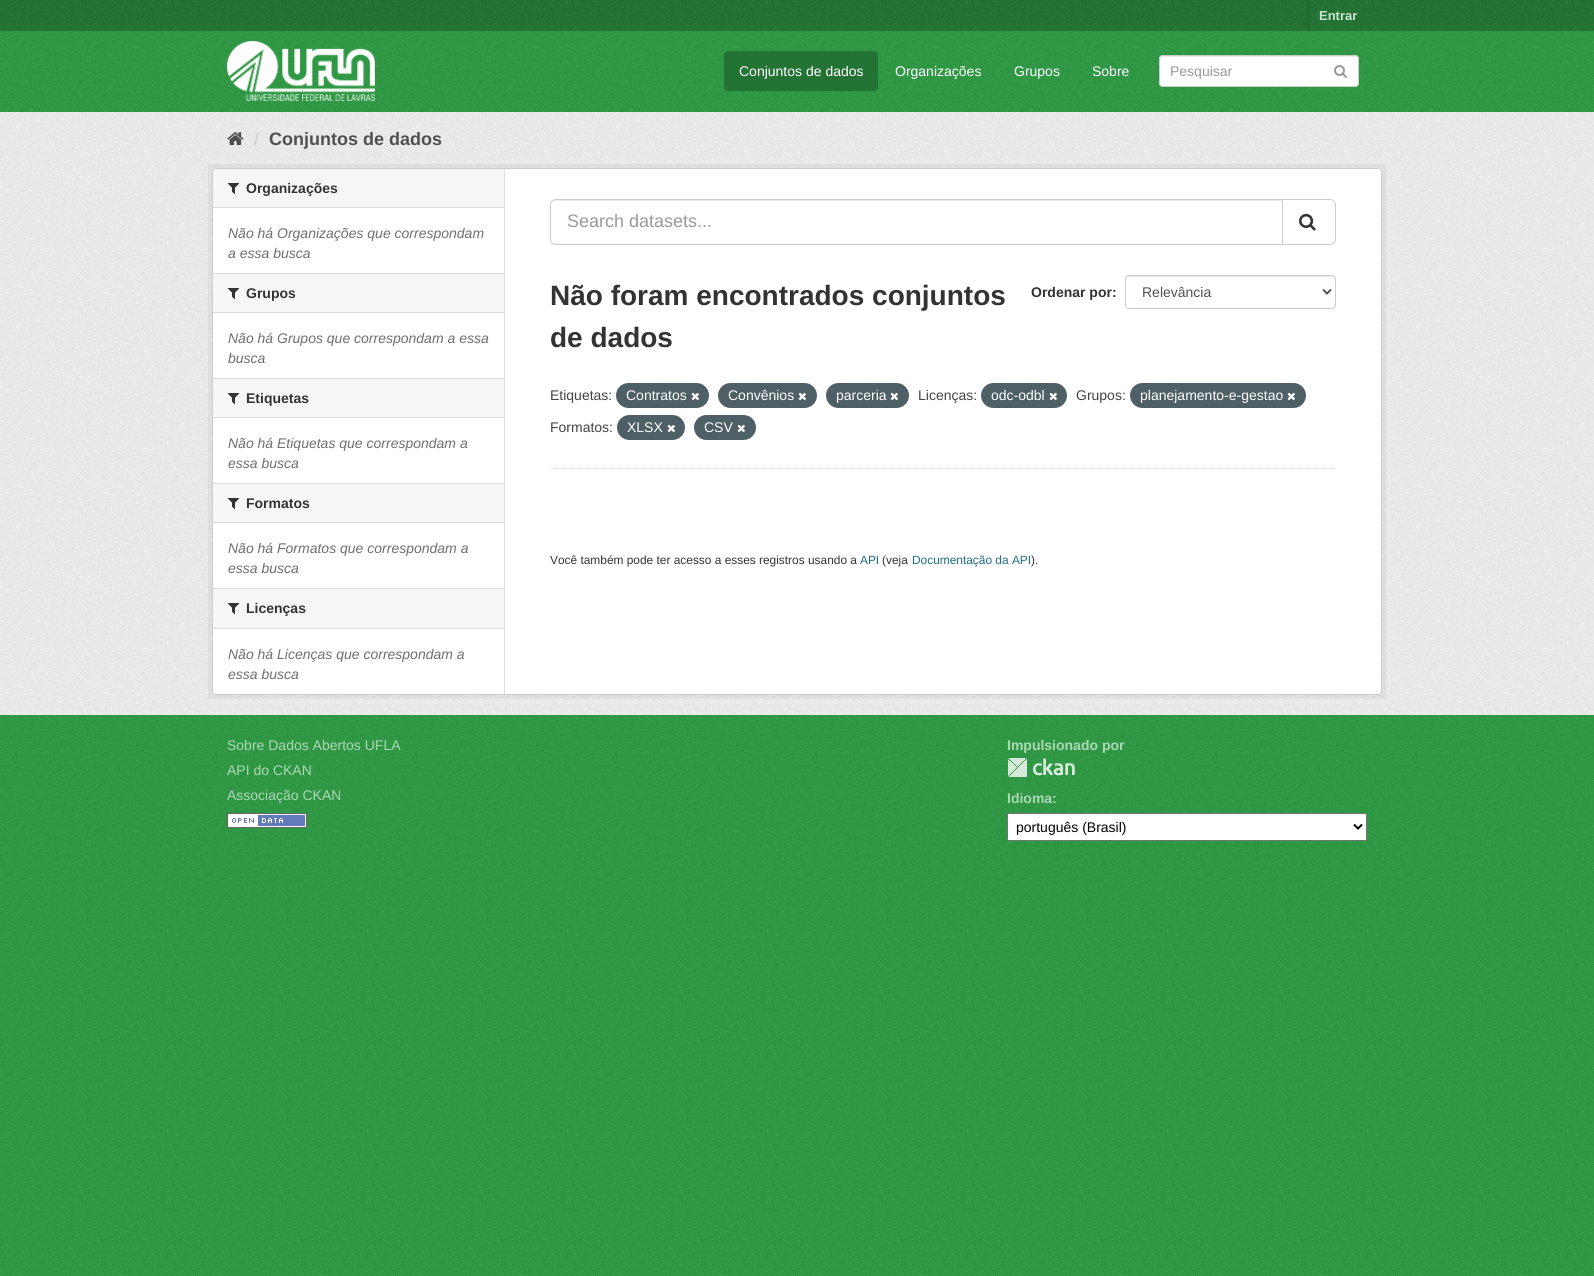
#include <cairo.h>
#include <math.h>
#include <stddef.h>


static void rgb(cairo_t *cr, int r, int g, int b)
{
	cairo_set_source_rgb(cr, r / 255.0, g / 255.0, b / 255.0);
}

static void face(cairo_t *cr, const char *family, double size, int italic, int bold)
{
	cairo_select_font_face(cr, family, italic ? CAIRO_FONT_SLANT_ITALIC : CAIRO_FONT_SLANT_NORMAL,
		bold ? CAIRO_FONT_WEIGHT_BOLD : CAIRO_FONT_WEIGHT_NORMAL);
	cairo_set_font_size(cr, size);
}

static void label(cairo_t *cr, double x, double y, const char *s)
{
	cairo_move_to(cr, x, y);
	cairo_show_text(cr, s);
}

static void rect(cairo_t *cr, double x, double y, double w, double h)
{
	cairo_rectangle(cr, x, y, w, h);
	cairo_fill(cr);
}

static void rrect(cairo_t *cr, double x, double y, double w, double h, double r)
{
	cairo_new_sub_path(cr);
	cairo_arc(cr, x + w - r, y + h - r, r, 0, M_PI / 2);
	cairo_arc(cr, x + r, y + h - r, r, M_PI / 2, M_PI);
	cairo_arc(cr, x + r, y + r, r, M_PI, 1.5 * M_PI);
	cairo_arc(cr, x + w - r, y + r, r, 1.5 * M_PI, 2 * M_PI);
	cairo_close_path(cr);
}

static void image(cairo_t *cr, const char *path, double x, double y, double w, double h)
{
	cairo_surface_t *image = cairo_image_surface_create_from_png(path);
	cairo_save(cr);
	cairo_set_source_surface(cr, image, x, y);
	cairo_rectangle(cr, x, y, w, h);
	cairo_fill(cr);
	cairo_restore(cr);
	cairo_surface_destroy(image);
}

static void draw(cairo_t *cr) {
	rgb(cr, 47, 155, 69);
	cairo_paint(cr);
	image(cr, "image0.png", 0, 861, 1594, 415);
	rgb(cr, 35, 116, 52);
	rect(cr, 0, 0, 1594, 31);
	image(cr, "image1.png", 0, 0, 1594, 31);
	rgb(cr, 29, 96, 43);
	rect(cr, 1308, 0, 1, 31);
	face(cr, "Liberation Sans", 13, 0, 1);
	rgb(cr, 203, 230, 209);
	label(cr, 1319, 20, "Entrar");
	image(cr, "image2.png", 0, 31, 1594, 81);
	image(cr, "image3.png", 227, 41, 148, 60);
	rgb(cr, 35, 116, 52);
	rrect(cr, 724, 51, 154, 40, 4);
	cairo_fill(cr);
	face(cr, "Liberation Sans", 14, 0, 0);
	rgb(cr, 255, 255, 255);
	label(cr, 739, 76, "Conjuntos de dados");
	label(cr, 895, 76, "Organizações");
	label(cr, 1014, 76, "Grupos");
	label(cr, 1092, 76, "Sobre");
	rrect(cr, 1159, 55, 200, 32, 4);
	cairo_fill(cr);
	rgb(cr, 236, 236, 236);
	cairo_new_path(cr);
	cairo_move_to(cr, 1163, 57);
	cairo_line_to(cr, 1355, 57);
	cairo_curve_to(cr, 1357, 57, 1358, 58, 1358, 60);
	cairo_curve_to(cr, 1358, 58, 1357, 56, 1355, 56);
	cairo_line_to(cr, 1163, 56);
	cairo_curve_to(cr, 1161, 56, 1160, 58, 1160, 60);
	cairo_curve_to(cr, 1160, 58, 1161, 57, 1163, 57);
	cairo_close_path(cr);
	cairo_fill(cr);
	rrect(cr, 1159.5, 55.5, 199, 31, 3.5);
	rgb(cr, 204, 204, 204);
	cairo_set_line_width(cr, 1);
	cairo_stroke(cr);
	rgb(cr, 153, 153, 153);
	label(cr, 1170, 76, "Pesquisar");
	image(cr, "image4.png", 1334, 65, 13, 13);
	rgb(cr, 238, 238, 238);
	rect(cr, 0, 112, 1594, 603);
	image(cr, "image5.png", 0, 112, 1594, 603);
	image(cr, "image6.png", 227, 132, 17, 13);
	face(cr, "Liberation Sans", 18, 0, 0);
	rgb(cr, 204, 204, 204);
	label(cr, 254, 145, "/");
	face(cr, "Liberation Sans", 18, 0, 1);
	rgb(cr, 80, 80, 80);
	label(cr, 269, 145, "Conjuntos de dados");
	cairo_rectangle(cr, 210, 166, 1174, 531);
	cairo_set_source_rgba(cr, 0, 0, 0, 0.05);
	cairo_set_line_width(cr, 4);
	cairo_stroke(cr);
	rgb(cr, 255, 255, 255);
	rrect(cr, 212.5, 168.5, 1169, 526, 3.5);
	cairo_fill_preserve(cr);
	rgb(cr, 204, 204, 204);
	cairo_set_line_width(cr, 1);
	cairo_stroke(cr);
	rgb(cr, 246, 246, 246);
	cairo_new_path(cr);
	cairo_move_to(cr, 216, 169);
	cairo_line_to(cr, 504, 169);
	cairo_line_to(cr, 504, 208);
	cairo_line_to(cr, 213, 208);
	cairo_line_to(cr, 213, 172);
	cairo_curve_to(cr, 213, 170.5, 214.5, 169, 216, 169);
	cairo_close_path(cr);
	cairo_fill(cr);
	rgb(cr, 221, 221, 221);
	rect(cr, 213, 207, 291, 1);
	image(cr, "image7.png", 228, 183, 11, 11);
	face(cr, "Liberation Sans", 14, 0, 1);
	rgb(cr, 51, 51, 51);
	label(cr, 246, 193, "Organizações");
	face(cr, "Liberation Sans", 14, 1, 0);
	rgb(cr, 110, 110, 110);
	label(cr, 228, 238, "Não há Organizações que correspondam");
	label(cr, 228, 258, "a essa busca");
	rgb(cr, 246, 246, 246);
	rect(cr, 213, 274, 291, 38);
	rgb(cr, 221, 221, 221);
	rect(cr, 213, 273, 291, 1);
	rect(cr, 213, 312, 291, 1);
	image(cr, "image7.png", 228, 288, 11, 11);
	face(cr, "Liberation Sans", 14, 0, 1);
	rgb(cr, 51, 51, 51);
	label(cr, 246, 298, "Grupos");
	face(cr, "Liberation Sans", 14, 1, 0);
	rgb(cr, 110, 110, 110);
	label(cr, 228, 343, "Não há Grupos que correspondam a essa");
	label(cr, 228, 363, "busca");
	rgb(cr, 246, 246, 246);
	rect(cr, 213, 379, 291, 38);
	rgb(cr, 221, 221, 221);
	rect(cr, 213, 378, 291, 1);
	rect(cr, 213, 417, 291, 1);
	image(cr, "image7.png", 228, 393, 11, 11);
	face(cr, "Liberation Sans", 14, 0, 1);
	rgb(cr, 51, 51, 51);
	label(cr, 246, 403, "Etiquetas");
	face(cr, "Liberation Sans", 14, 1, 0);
	rgb(cr, 110, 110, 110);
	label(cr, 228, 448, "Não há Etiquetas que correspondam a");
	label(cr, 228, 468, "essa busca");
	rgb(cr, 246, 246, 246);
	rect(cr, 213, 484, 291, 38);
	rgb(cr, 221, 221, 221);
	rect(cr, 213, 483, 291, 1);
	rect(cr, 213, 522, 291, 1);
	image(cr, "image7.png", 228, 498, 11, 11);
	face(cr, "Liberation Sans", 14, 0, 1);
	rgb(cr, 51, 51, 51);
	label(cr, 246, 508, "Formatos");
	face(cr, "Liberation Sans", 14, 1, 0);
	rgb(cr, 110, 110, 110);
	label(cr, 228, 553, "Não há Formatos que correspondam a");
	label(cr, 228, 573, "essa busca");
	rgb(cr, 246, 246, 246);
	rect(cr, 213, 589, 291, 39);
	rgb(cr, 221, 221, 221);
	rect(cr, 213, 588, 291, 1);
	rect(cr, 213, 628, 291, 1);
	image(cr, "image7.png", 228, 603, 11, 11);
	face(cr, "Liberation Sans", 14, 0, 1);
	rgb(cr, 51, 51, 51);
	label(cr, 246, 613, "Licenças");
	face(cr, "Liberation Sans", 14, 1, 0);
	rgb(cr, 110, 110, 110);
	label(cr, 228, 659, "Não há Licenças que correspondam a");
	label(cr, 228, 679, "essa busca");
	rgb(cr, 221, 221, 221);
	rect(cr, 504, 169, 1, 525);
	cairo_new_path(cr);
	cairo_move_to(cr, 550, 468.5);
	cairo_line_to(cr, 1336, 468.5);
	cairo_set_dash(cr, (double[]){1, 1}, 2, 0);
	cairo_stroke(cr);
	rgb(cr, 236, 236, 236);
	cairo_new_path(cr);
	cairo_move_to(cr, 556, 201);
	cairo_line_to(cr, 1282, 201);
	cairo_line_to(cr, 1282, 200);
	cairo_line_to(cr, 556, 200);
	cairo_curve_to(cr, 553, 200, 551, 203, 551, 206);
	cairo_curve_to(cr, 551, 203, 553, 201, 556, 201);
	cairo_close_path(cr);
	cairo_fill(cr);
	cairo_new_path(cr);
	cairo_move_to(cr, 556, 199.5);
	cairo_line_to(cr, 1282.5, 199.5);
	cairo_line_to(cr, 1282.5, 244.5);
	cairo_line_to(cr, 556, 244.5);
	cairo_curve_to(cr, 553, 244.5, 550.5, 242, 550.5, 239);
	cairo_line_to(cr, 550.5, 205);
	cairo_curve_to(cr, 550.5, 202, 553, 199.5, 556, 199.5);
	cairo_close_path(cr);
	rgb(cr, 204, 204, 204);
	cairo_set_dash(cr, NULL, 0, 0);
	cairo_stroke(cr);
	face(cr, "Liberation Sans", 18, 0, 0);
	rgb(cr, 153, 153, 153);
	label(cr, 567, 227, "Search datasets...");
	rgb(cr, 255, 255, 255);
	cairo_new_path(cr);
	cairo_move_to(cr, 1282.5, 199.5);
	cairo_line_to(cr, 1330, 199.5);
	cairo_curve_to(cr, 1333, 199.5, 1335.5, 202, 1335.5, 205);
	cairo_line_to(cr, 1335.5, 239);
	cairo_curve_to(cr, 1335.5, 242, 1333, 244.5, 1330, 244.5);
	cairo_line_to(cr, 1282.5, 244.5);
	cairo_close_path(cr);
	cairo_fill_preserve(cr);
	rgb(cr, 204, 204, 204);
	cairo_stroke(cr);
	image(cr, "image8.png", 1299, 213, 17, 18);
	face(cr, "Liberation Sans", 28, 0, 1);
	rgb(cr, 51, 51, 51);
	label(cr, 550, 305, "Não foram encontrados conjuntos");
	label(cr, 550, 347, "de dados");
	face(cr, "Liberation Sans", 14, 0, 1);
	label(cr, 1031, 297, "Ordenar por:");
	rgb(cr, 236, 236, 236);
	cairo_new_path(cr);
	cairo_move_to(cr, 1129, 277);
	cairo_line_to(cr, 1332, 277);
	cairo_curve_to(cr, 1334, 277, 1335, 278, 1335, 280);
	cairo_line_to(cr, 1335, 279);
	cairo_curve_to(cr, 1335, 277, 1334, 276, 1332, 276);
	cairo_line_to(cr, 1129, 276);
	cairo_curve_to(cr, 1127, 276, 1126, 277, 1126, 279);
	cairo_line_to(cr, 1126, 280);
	cairo_curve_to(cr, 1126, 278, 1127, 277, 1129, 277);
	cairo_close_path(cr);
	cairo_fill(cr);
	rrect(cr, 1125.5, 275.5, 210, 33, 3.5);
	rgb(cr, 204, 204, 204);
	cairo_stroke(cr);
	cairo_new_path(cr);
	cairo_move_to(cr, 1323, 289.5);
	cairo_line_to(cr, 1327, 293.5);
	cairo_line_to(cr, 1331, 289.5);
	rgb(cr, 85, 85, 85);
	cairo_set_line_width(cr, 2);
	cairo_stroke(cr);
	face(cr, "Liberation Sans", 14, 0, 0);
	rgb(cr, 80, 80, 80);
	label(cr, 1142, 297, "Relevância");
	rgb(cr, 68, 68, 68);
	label(cr, 550, 400, "Etiquetas:");
	rgb(cr, 78, 95, 101);
	rrect(cr, 616, 383, 93, 25, 12.5);
	cairo_fill(cr);
	rgb(cr, 255, 255, 255);
	label(cr, 626, 400, "Contratos");
	image(cr, "image9.png", 691, 392, 8, 9);
	rgb(cr, 78, 95, 101);
	rrect(cr, 718, 383, 99, 25, 12.5);
	cairo_fill(cr);
	rgb(cr, 255, 255, 255);
	label(cr, 728, 400, "Convênios");
	image(cr, "image9.png", 798, 392, 8, 9);
	rgb(cr, 78, 95, 101);
	rrect(cr, 826, 383, 83, 25, 12.5);
	cairo_fill(cr);
	rgb(cr, 255, 255, 255);
	label(cr, 836, 400, "parceria");
	image(cr, "image9.png", 890, 392, 8, 9);
	rgb(cr, 68, 68, 68);
	label(cr, 918, 400, "Licenças:");
	rgb(cr, 78, 95, 101);
	rrect(cr, 981, 383, 86, 25, 12.5);
	cairo_fill(cr);
	rgb(cr, 255, 255, 255);
	label(cr, 991, 400, "odc-odbl");
	image(cr, "image9.png", 1049, 392, 8, 9);
	rgb(cr, 68, 68, 68);
	label(cr, 1076, 400, "Grupos:");
	rgb(cr, 78, 95, 101);
	rrect(cr, 1130, 383, 176, 25, 12.5);
	cairo_fill(cr);
	rgb(cr, 255, 255, 255);
	label(cr, 1140, 400, "planejamento-e-gestao");
	image(cr, "image9.png", 1287, 392, 8, 9);
	rgb(cr, 68, 68, 68);
	label(cr, 550, 432, "Formatos:");
	rgb(cr, 78, 95, 101);
	rrect(cr, 617, 415, 68, 25, 12.5);
	cairo_fill(cr);
	rgb(cr, 255, 255, 255);
	label(cr, 627, 432, "XLSX");
	image(cr, "image9.png", 667, 424, 8, 9);
	rgb(cr, 78, 95, 101);
	rrect(cr, 694, 415, 62, 25, 12.5);
	cairo_fill(cr);
	rgb(cr, 255, 255, 255);
	label(cr, 704, 432, "CSV");
	image(cr, "image9.png", 737, 424, 8, 9);
	face(cr, "Liberation Sans", 11.9, 0, 0);
	rgb(cr, 51, 51, 51);
	label(cr, 550, 564, "Você também pode ter acesso a esses registros usando a");
	rgb(cr, 32, 107, 130);
	label(cr, 860, 564, "API");
	rgb(cr, 51, 51, 51);
	label(cr, 882, 564, "(veja");
	rgb(cr, 32, 107, 130);
	label(cr, 912, 564, "Documentação da API");
	rgb(cr, 51, 51, 51);
	label(cr, 1031, 564, ").");
	image(cr, "image10.png", 0, 715, 1594, 146);
	face(cr, "Liberation Sans", 14, 0, 0);
	rgb(cr, 172, 215, 181);
	label(cr, 227, 750, "Sobre Dados Abertos UFLA");
	label(cr, 227, 775, "API do CKAN");
	label(cr, 227, 800, "Associação CKAN");
	image(cr, "image11.png", 227, 813, 80, 15);
	face(cr, "Liberation Sans", 14, 0, 1);
	label(cr, 1007, 750, "Impulsionado por");
	image(cr, "image12.png", 1008, 758, 67, 19);
	label(cr, 1007, 803, "Idioma:");
	rgb(cr, 255, 255, 255);
	rrect(cr, 1007.5, 813.5, 359, 27, 1.5);
	cairo_fill_preserve(cr);
	rgb(cr, 118, 118, 118);
	cairo_set_line_width(cr, 1);
	cairo_stroke(cr);
	cairo_new_path(cr);
	cairo_move_to(cr, 1354, 824.5);
	cairo_line_to(cr, 1358, 828.5);
	cairo_line_to(cr, 1362, 824.5);
	rgb(cr, 0, 0, 0);
	cairo_set_line_width(cr, 2);
	cairo_stroke(cr);
	face(cr, "Liberation Sans", 14, 0, 0);
	label(cr, 1016, 832, "português (Brasil)");
}

int main(void) {
	cairo_surface_t *surface = cairo_image_surface_create(CAIRO_FORMAT_RGB24, 1594, 1276);
	cairo_t *cr = cairo_create(surface);
	cairo_font_options_t *options = cairo_font_options_create();
	cairo_font_options_set_hint_metrics(options, CAIRO_HINT_METRICS_OFF);
	cairo_font_options_set_hint_style(options, CAIRO_HINT_STYLE_NONE);
	cairo_set_font_options(cr, options);
	cairo_set_miter_limit(cr, 4);
	draw(cr);
	cairo_surface_write_to_png(surface, "render.png");
	cairo_font_options_destroy(options);
	cairo_destroy(cr);
	cairo_surface_destroy(surface);
	return 0;
}
